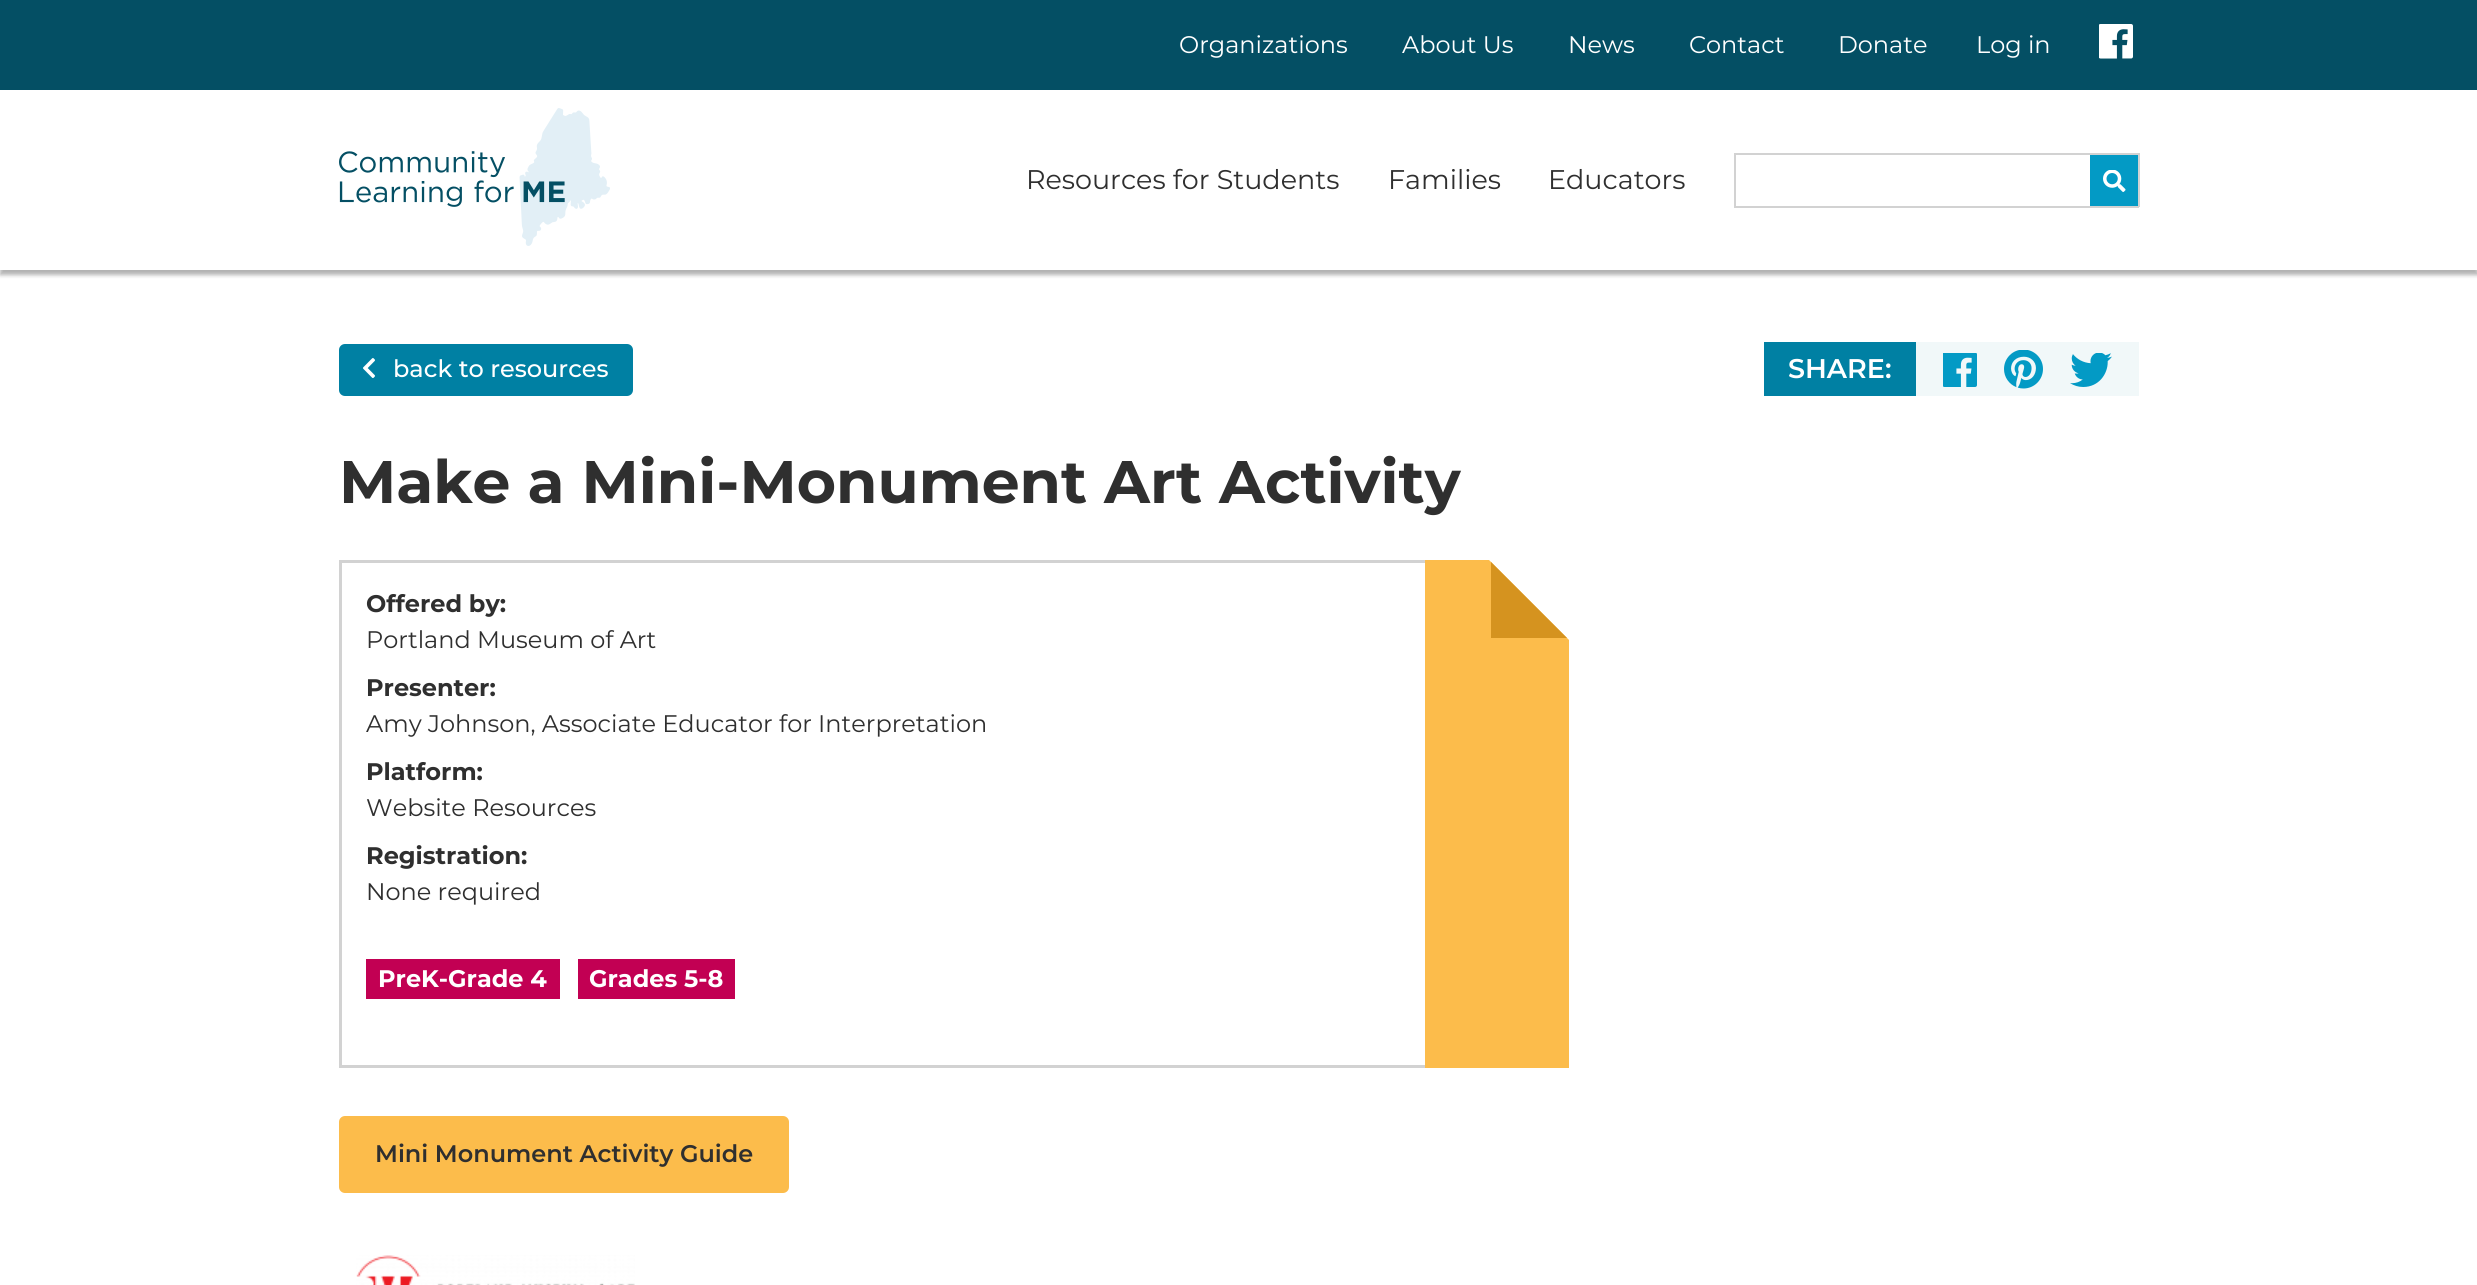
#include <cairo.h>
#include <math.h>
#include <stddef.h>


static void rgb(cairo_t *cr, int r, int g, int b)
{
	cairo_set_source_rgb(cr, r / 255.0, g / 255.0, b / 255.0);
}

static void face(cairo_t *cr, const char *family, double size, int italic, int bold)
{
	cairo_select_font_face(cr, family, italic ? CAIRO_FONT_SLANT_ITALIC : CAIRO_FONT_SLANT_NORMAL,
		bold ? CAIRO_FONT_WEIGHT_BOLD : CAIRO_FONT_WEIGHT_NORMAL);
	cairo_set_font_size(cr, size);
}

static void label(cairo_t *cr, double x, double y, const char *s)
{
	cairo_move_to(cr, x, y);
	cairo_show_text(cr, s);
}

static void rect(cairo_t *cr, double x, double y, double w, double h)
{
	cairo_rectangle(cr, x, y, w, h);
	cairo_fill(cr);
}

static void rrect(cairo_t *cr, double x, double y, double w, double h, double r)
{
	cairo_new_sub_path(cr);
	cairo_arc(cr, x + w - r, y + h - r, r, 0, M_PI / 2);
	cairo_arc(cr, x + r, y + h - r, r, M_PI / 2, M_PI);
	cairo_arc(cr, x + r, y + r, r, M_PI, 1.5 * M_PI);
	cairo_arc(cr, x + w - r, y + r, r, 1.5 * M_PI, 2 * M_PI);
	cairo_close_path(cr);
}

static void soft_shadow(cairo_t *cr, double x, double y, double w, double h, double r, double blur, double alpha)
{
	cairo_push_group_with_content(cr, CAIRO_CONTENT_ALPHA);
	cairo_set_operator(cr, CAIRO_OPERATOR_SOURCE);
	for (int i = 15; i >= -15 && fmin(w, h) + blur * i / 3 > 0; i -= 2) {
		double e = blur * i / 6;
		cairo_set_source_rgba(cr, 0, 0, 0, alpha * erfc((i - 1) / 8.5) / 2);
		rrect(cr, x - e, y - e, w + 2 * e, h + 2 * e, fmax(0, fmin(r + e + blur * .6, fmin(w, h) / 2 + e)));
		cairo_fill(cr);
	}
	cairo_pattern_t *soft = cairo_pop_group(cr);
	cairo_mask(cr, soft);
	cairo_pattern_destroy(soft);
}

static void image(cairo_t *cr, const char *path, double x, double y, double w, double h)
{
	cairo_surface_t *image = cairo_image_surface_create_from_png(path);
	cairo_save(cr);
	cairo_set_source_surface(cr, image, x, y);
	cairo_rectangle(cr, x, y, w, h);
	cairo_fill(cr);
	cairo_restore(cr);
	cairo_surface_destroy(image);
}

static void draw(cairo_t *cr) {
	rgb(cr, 4, 79, 100);
	cairo_paint(cr);
	face(cr, "Montserrat", 24, 0, 0);
	rgb(cr, 255, 255, 255);
	label(cr, 1179, 53, "Organizations");
	label(cr, 1402, 53, "About Us");
	label(cr, 1568, 53, "News");
	label(cr, 1689, 53, "Contact");
	label(cr, 1838, 53, "Donate");
	label(cr, 1976, 53, "Log in");
	image(cr, "image0.png", 2099, 24, 34, 35);
	rect(cr, 0, 270, 2477, 1015);
	rgb(cr, 0, 0, 0);
	soft_shadow(cr, 0, 95, 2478, 180, 0, 2, 0.3);
	rgb(cr, 255, 255, 255);
	rect(cr, 0, 90, 2477, 180);
	image(cr, "image1.png", 339, 108, 271, 138);
	face(cr, "Montserrat", 27, 0, 0);
	rgb(cr, 47, 47, 47);
	label(cr, 1026, 189, "Resources for Students");
	label(cr, 1388, 189, "Families");
	label(cr, 1548, 189, "Educators");
	rgb(cr, 210, 210, 210);
	rect(cr, 1734, 153, 405, 2);
	rect(cr, 1734, 206, 356, 2);
	rect(cr, 1734, 153, 2, 54);
	rgb(cr, 3, 154, 197);
	rect(cr, 2090, 155, 48, 51);
	image(cr, "image2.png", 2103, 170, 23, 22);
	rgb(cr, 210, 210, 210);
	rect(cr, 2138, 153, 2, 54);
	rect(cr, 2090, 206, 49, 2);
	rgb(cr, 0, 128, 163);
	rrect(cr, 339, 344, 294, 52, 6);
	cairo_fill(cr);
	image(cr, "image3.png", 363, 358, 12, 20);
	face(cr, "Montserrat Medium", 24, 0, 0);
	rgb(cr, 255, 255, 255);
	label(cr, 393, 377, "back to resources");
	rgb(cr, 241, 248, 249);
	rect(cr, 1916, 342, 223, 54);
	rgb(cr, 0, 128, 163);
	rect(cr, 1764, 342, 152, 54);
	face(cr, "Montserrat SemiBold", 27, 0, 0);
	rgb(cr, 255, 255, 255);
	label(cr, 1788, 378, "SHARE:");
	image(cr, "image4.png", 1943, 353, 34, 34);
	image(cr, "image5.png", 2004, 350, 39, 39);
	image(cr, "image6.png", 2070, 353, 42, 34);
	face(cr, "Montserrat", 60, 0, 1);
	rgb(cr, 47, 47, 47);
	label(cr, 339, 503, "Make a Mini-Monument Art Activity");
	rgb(cr, 210, 210, 210);
	rect(cr, 339, 560, 1086, 3);
	rect(cr, 339, 1065, 1086, 3);
	rect(cr, 339, 560, 3, 508);
	face(cr, "Montserrat", 24, 0, 1);
	rgb(cr, 47, 47, 47);
	label(cr, 366, 612, "Offered by:");
	face(cr, "Montserrat", 24, 0, 0);
	label(cr, 366, 648, "Portland Museum of Art");
	face(cr, "Montserrat", 24, 0, 1);
	label(cr, 366, 696, "Presenter:");
	face(cr, "Montserrat", 24, 0, 0);
	label(cr, 366, 732, "Amy Johnson, Associate Educator for Interpretation");
	face(cr, "Montserrat", 24, 0, 1);
	label(cr, 366, 780, "Platform:");
	face(cr, "Montserrat", 24, 0, 0);
	label(cr, 366, 816, "Website Resources");
	face(cr, "Montserrat", 24, 0, 1);
	label(cr, 366, 864, "Registration:");
	face(cr, "Montserrat", 24, 0, 0);
	label(cr, 366, 900, "None required");
	rgb(cr, 194, 0, 83);
	rect(cr, 366, 959, 194, 40);
	face(cr, "Montserrat", 24, 0, 1);
	rgb(cr, 255, 255, 255);
	label(cr, 378, 987, "PreK-Grade 4");
	rgb(cr, 194, 0, 83);
	rect(cr, 578, 959, 157, 40);
	rgb(cr, 255, 255, 255);
	label(cr, 589, 987, "Grades 5-8");
	rgb(cr, 252, 188, 75);
	cairo_new_path(cr);
	cairo_move_to(cr, 1425, 560);
	cairo_line_to(cr, 1425, 1068);
	cairo_line_to(cr, 1569, 1068);
	cairo_line_to(cr, 1569, 640);
	cairo_line_to(cr, 1489, 560);
	cairo_close_path(cr);
	cairo_fill(cr);
	rgb(cr, 213, 147, 31);
	cairo_new_path(cr);
	cairo_move_to(cr, 1567, 638);
	cairo_line_to(cr, 1491, 638);
	cairo_line_to(cr, 1491, 562);
	cairo_close_path(cr);
	cairo_fill(cr);
	rgb(cr, 252, 188, 75);
	rrect(cr, 339, 1116, 450, 77, 6);
	cairo_fill(cr);
	face(cr, "Montserrat SemiBold", 24, 0, 0);
	rgb(cr, 47, 47, 47);
	label(cr, 375, 1162, "Mini Monument Activity Guide");
	image(cr, "image7.png", 356, 1255, 279, 30);
}

int main(void) {
	cairo_surface_t *surface = cairo_image_surface_create(CAIRO_FORMAT_RGB24, 2477, 1285);
	cairo_t *cr = cairo_create(surface);
	cairo_font_options_t *options = cairo_font_options_create();
	cairo_font_options_set_hint_metrics(options, CAIRO_HINT_METRICS_OFF);
	cairo_font_options_set_hint_style(options, CAIRO_HINT_STYLE_NONE);
	cairo_set_font_options(cr, options);
	cairo_set_miter_limit(cr, 4);
	draw(cr);
	cairo_surface_write_to_png(surface, "render.png");
	cairo_font_options_destroy(options);
	cairo_destroy(cr);
	cairo_surface_destroy(surface);
	return 0;
}
